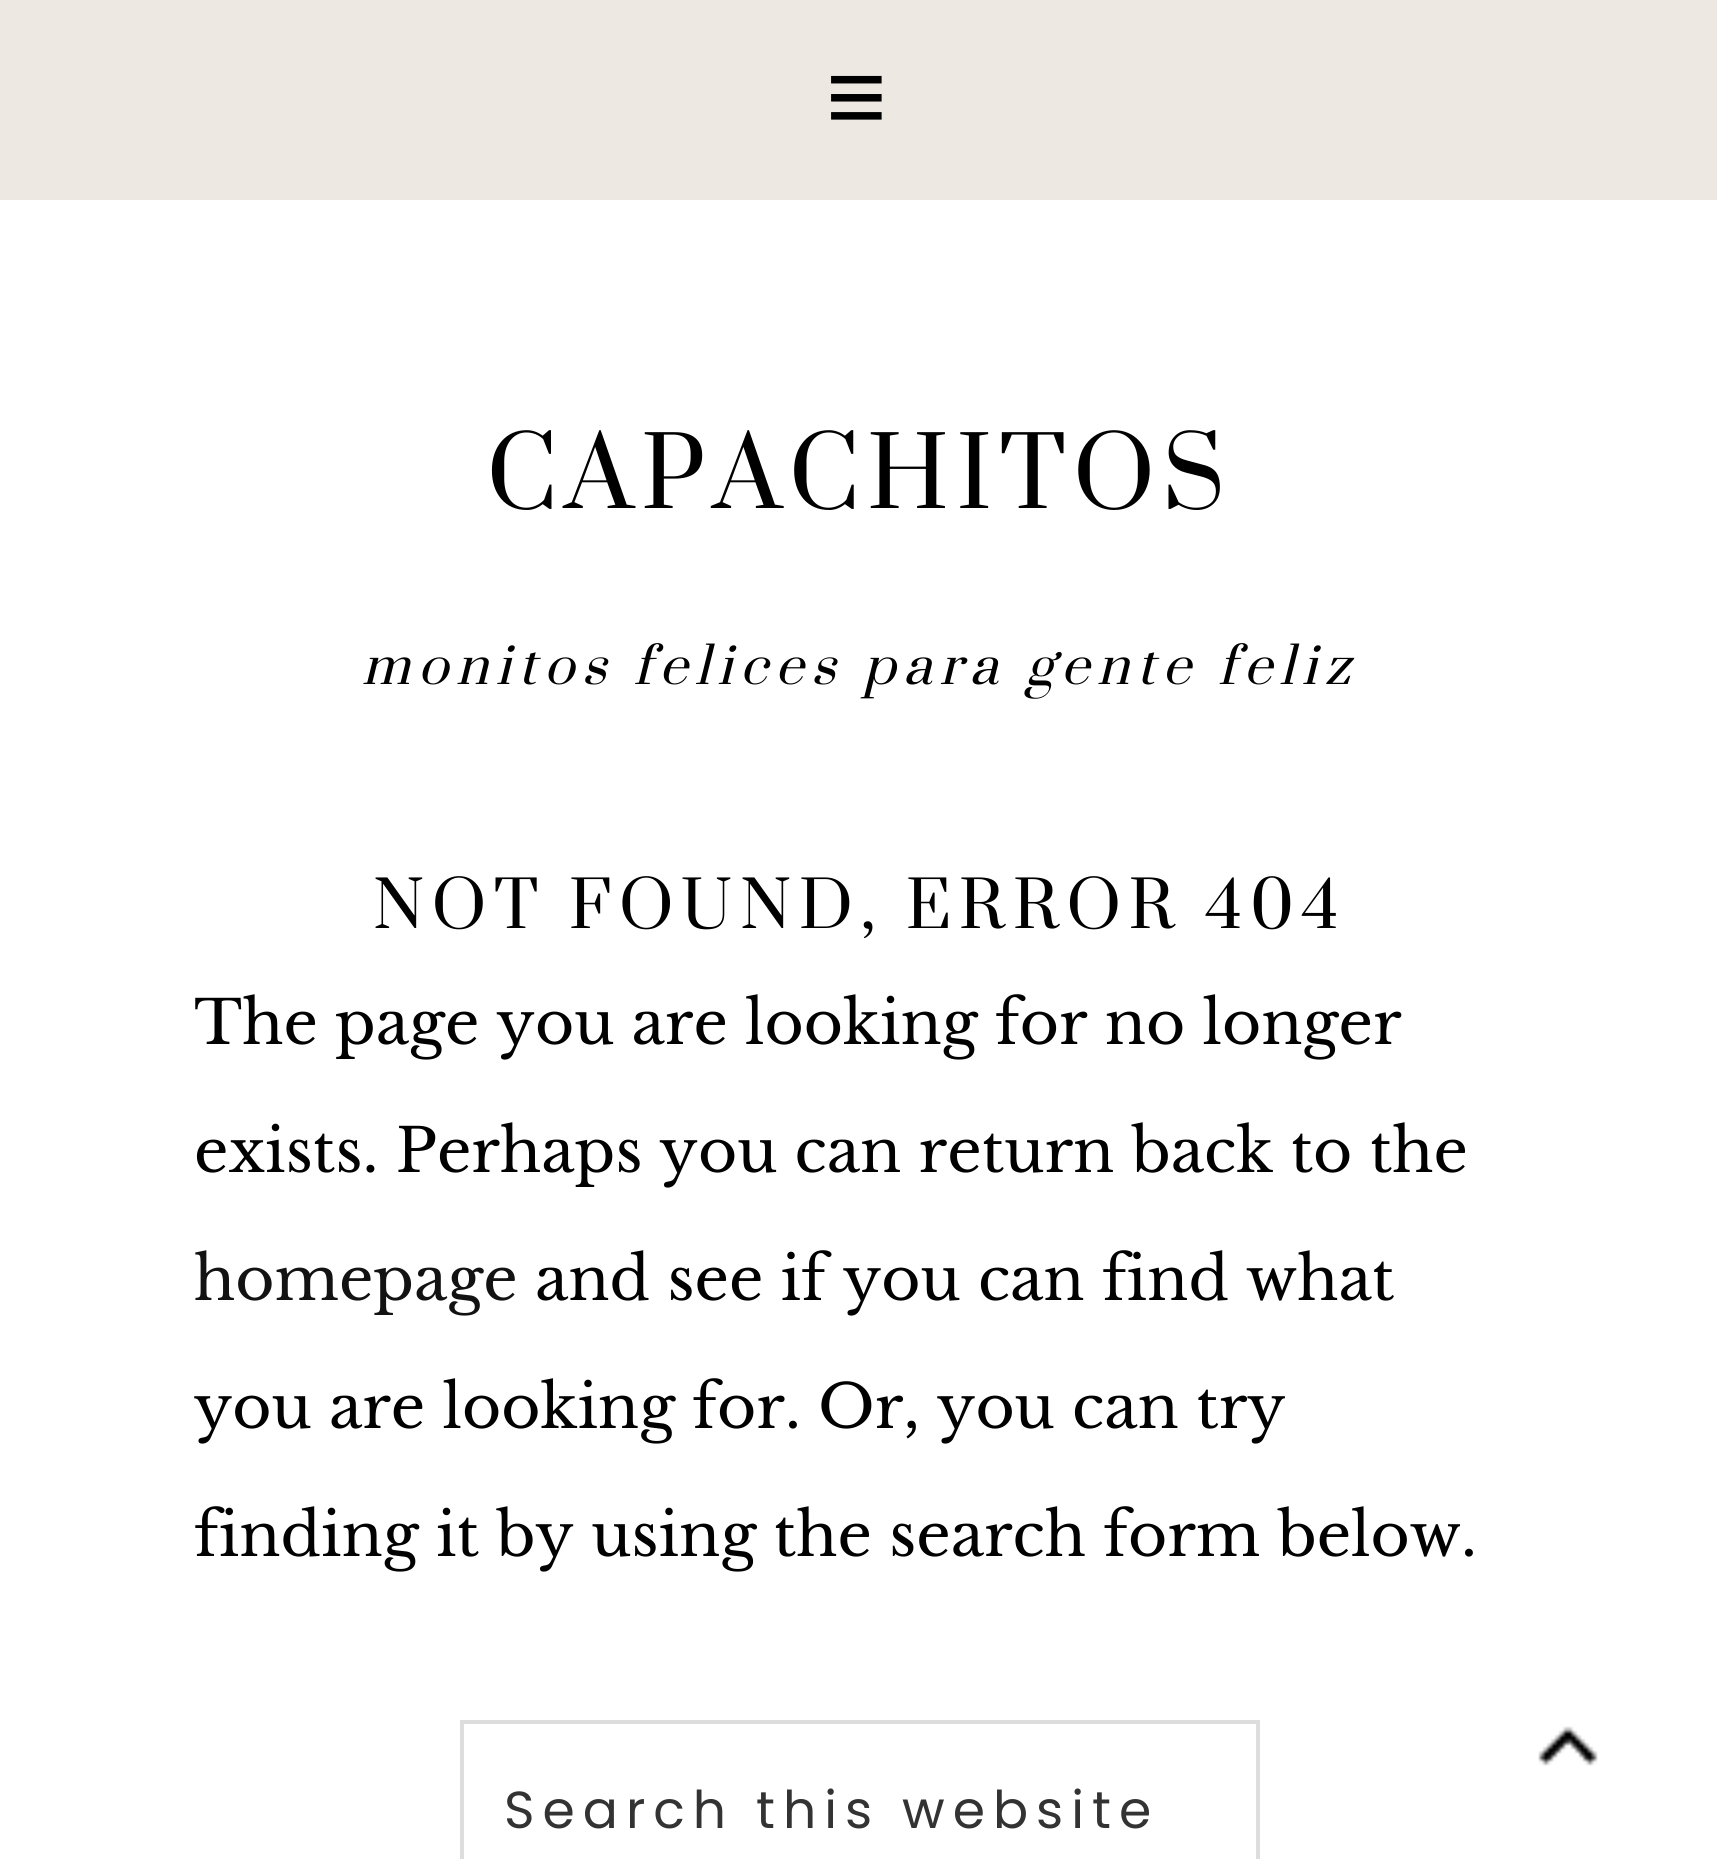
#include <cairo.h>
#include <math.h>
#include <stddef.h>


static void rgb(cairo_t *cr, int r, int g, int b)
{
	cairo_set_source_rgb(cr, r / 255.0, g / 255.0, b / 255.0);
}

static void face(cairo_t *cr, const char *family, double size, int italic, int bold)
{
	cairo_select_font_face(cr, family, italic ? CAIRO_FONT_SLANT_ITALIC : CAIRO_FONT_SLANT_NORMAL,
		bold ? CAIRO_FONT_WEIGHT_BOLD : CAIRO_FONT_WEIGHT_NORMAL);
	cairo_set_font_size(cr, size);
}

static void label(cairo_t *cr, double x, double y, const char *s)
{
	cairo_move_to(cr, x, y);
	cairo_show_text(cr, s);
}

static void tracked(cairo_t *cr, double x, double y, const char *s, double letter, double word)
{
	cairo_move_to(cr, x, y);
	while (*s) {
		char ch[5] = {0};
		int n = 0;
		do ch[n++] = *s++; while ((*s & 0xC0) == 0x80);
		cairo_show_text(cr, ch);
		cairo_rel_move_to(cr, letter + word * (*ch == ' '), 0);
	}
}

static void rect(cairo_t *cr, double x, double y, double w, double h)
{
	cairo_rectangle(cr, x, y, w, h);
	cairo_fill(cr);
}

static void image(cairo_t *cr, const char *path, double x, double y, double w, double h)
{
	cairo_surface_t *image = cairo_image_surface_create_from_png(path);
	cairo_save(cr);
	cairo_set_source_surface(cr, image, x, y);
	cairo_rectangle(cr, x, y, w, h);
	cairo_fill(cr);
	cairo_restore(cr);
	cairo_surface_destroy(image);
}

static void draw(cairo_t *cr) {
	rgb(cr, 255, 255, 255);
	cairo_paint(cr);
	rgb(cr, 237, 232, 226);
	rect(cr, 0, 0, 1717, 200);
	face(cr, "Liberation Sans", 104, 0, 0);
	rgb(cr, 0, 0, 0);
	tracked(cr, 826, 132, "≡", 8, 0);
	face(cr, "Suranna", 120, 0, 0);
	tracked(cr, 487, 508, "CAPACHITOS", 8, 0);
	face(cr, "Suranna", 64, 1, 0);
	tracked(cr, 362, 684, "monitos felices para gente feliz", 8, 0);
	face(cr, "Suranna", 80, 0, 0);
	tracked(cr, 373, 928, "NOT FOUND, ERROR 404", 8, 0);
	face(cr, "Libre Baskerville", 60, 0, 0);
	label(cr, 194, 1044, "The page you are looking for no longer");
	label(cr, 194, 1172, "exists. Perhaps you can return back to the");
	rgb(cr, 18, 18, 18);
	label(cr, 194, 1300, "homepage");
	rgb(cr, 0, 0, 0);
	label(cr, 535, 1300, "and see if you can find what");
	label(cr, 194, 1428, "you are looking for. Or, you can try");
	label(cr, 194, 1556, "finding it by using the search form below.");
	cairo_rectangle(cr, 462, 1722, 796, 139);
	rgb(cr, 221, 221, 221);
	cairo_set_line_width(cr, 4);
	cairo_stroke(cr);
	face(cr, "Poppins", 52, 0, 0);
	rgb(cr, 51, 51, 51);
	tracked(cr, 504, 1828, "Search this website", 8, 0);
	image(cr, "image0.png", 1538, 1726, 60, 40);
}

int main(void) {
	cairo_surface_t *surface = cairo_image_surface_create(CAIRO_FORMAT_RGB24, 1717, 1859);
	cairo_t *cr = cairo_create(surface);
	cairo_font_options_t *options = cairo_font_options_create();
	cairo_font_options_set_hint_metrics(options, CAIRO_HINT_METRICS_OFF);
	cairo_font_options_set_hint_style(options, CAIRO_HINT_STYLE_NONE);
	cairo_set_font_options(cr, options);
	cairo_set_miter_limit(cr, 4);
	draw(cr);
	cairo_surface_write_to_png(surface, "render.png");
	cairo_font_options_destroy(options);
	cairo_destroy(cr);
	cairo_surface_destroy(surface);
	return 0;
}
